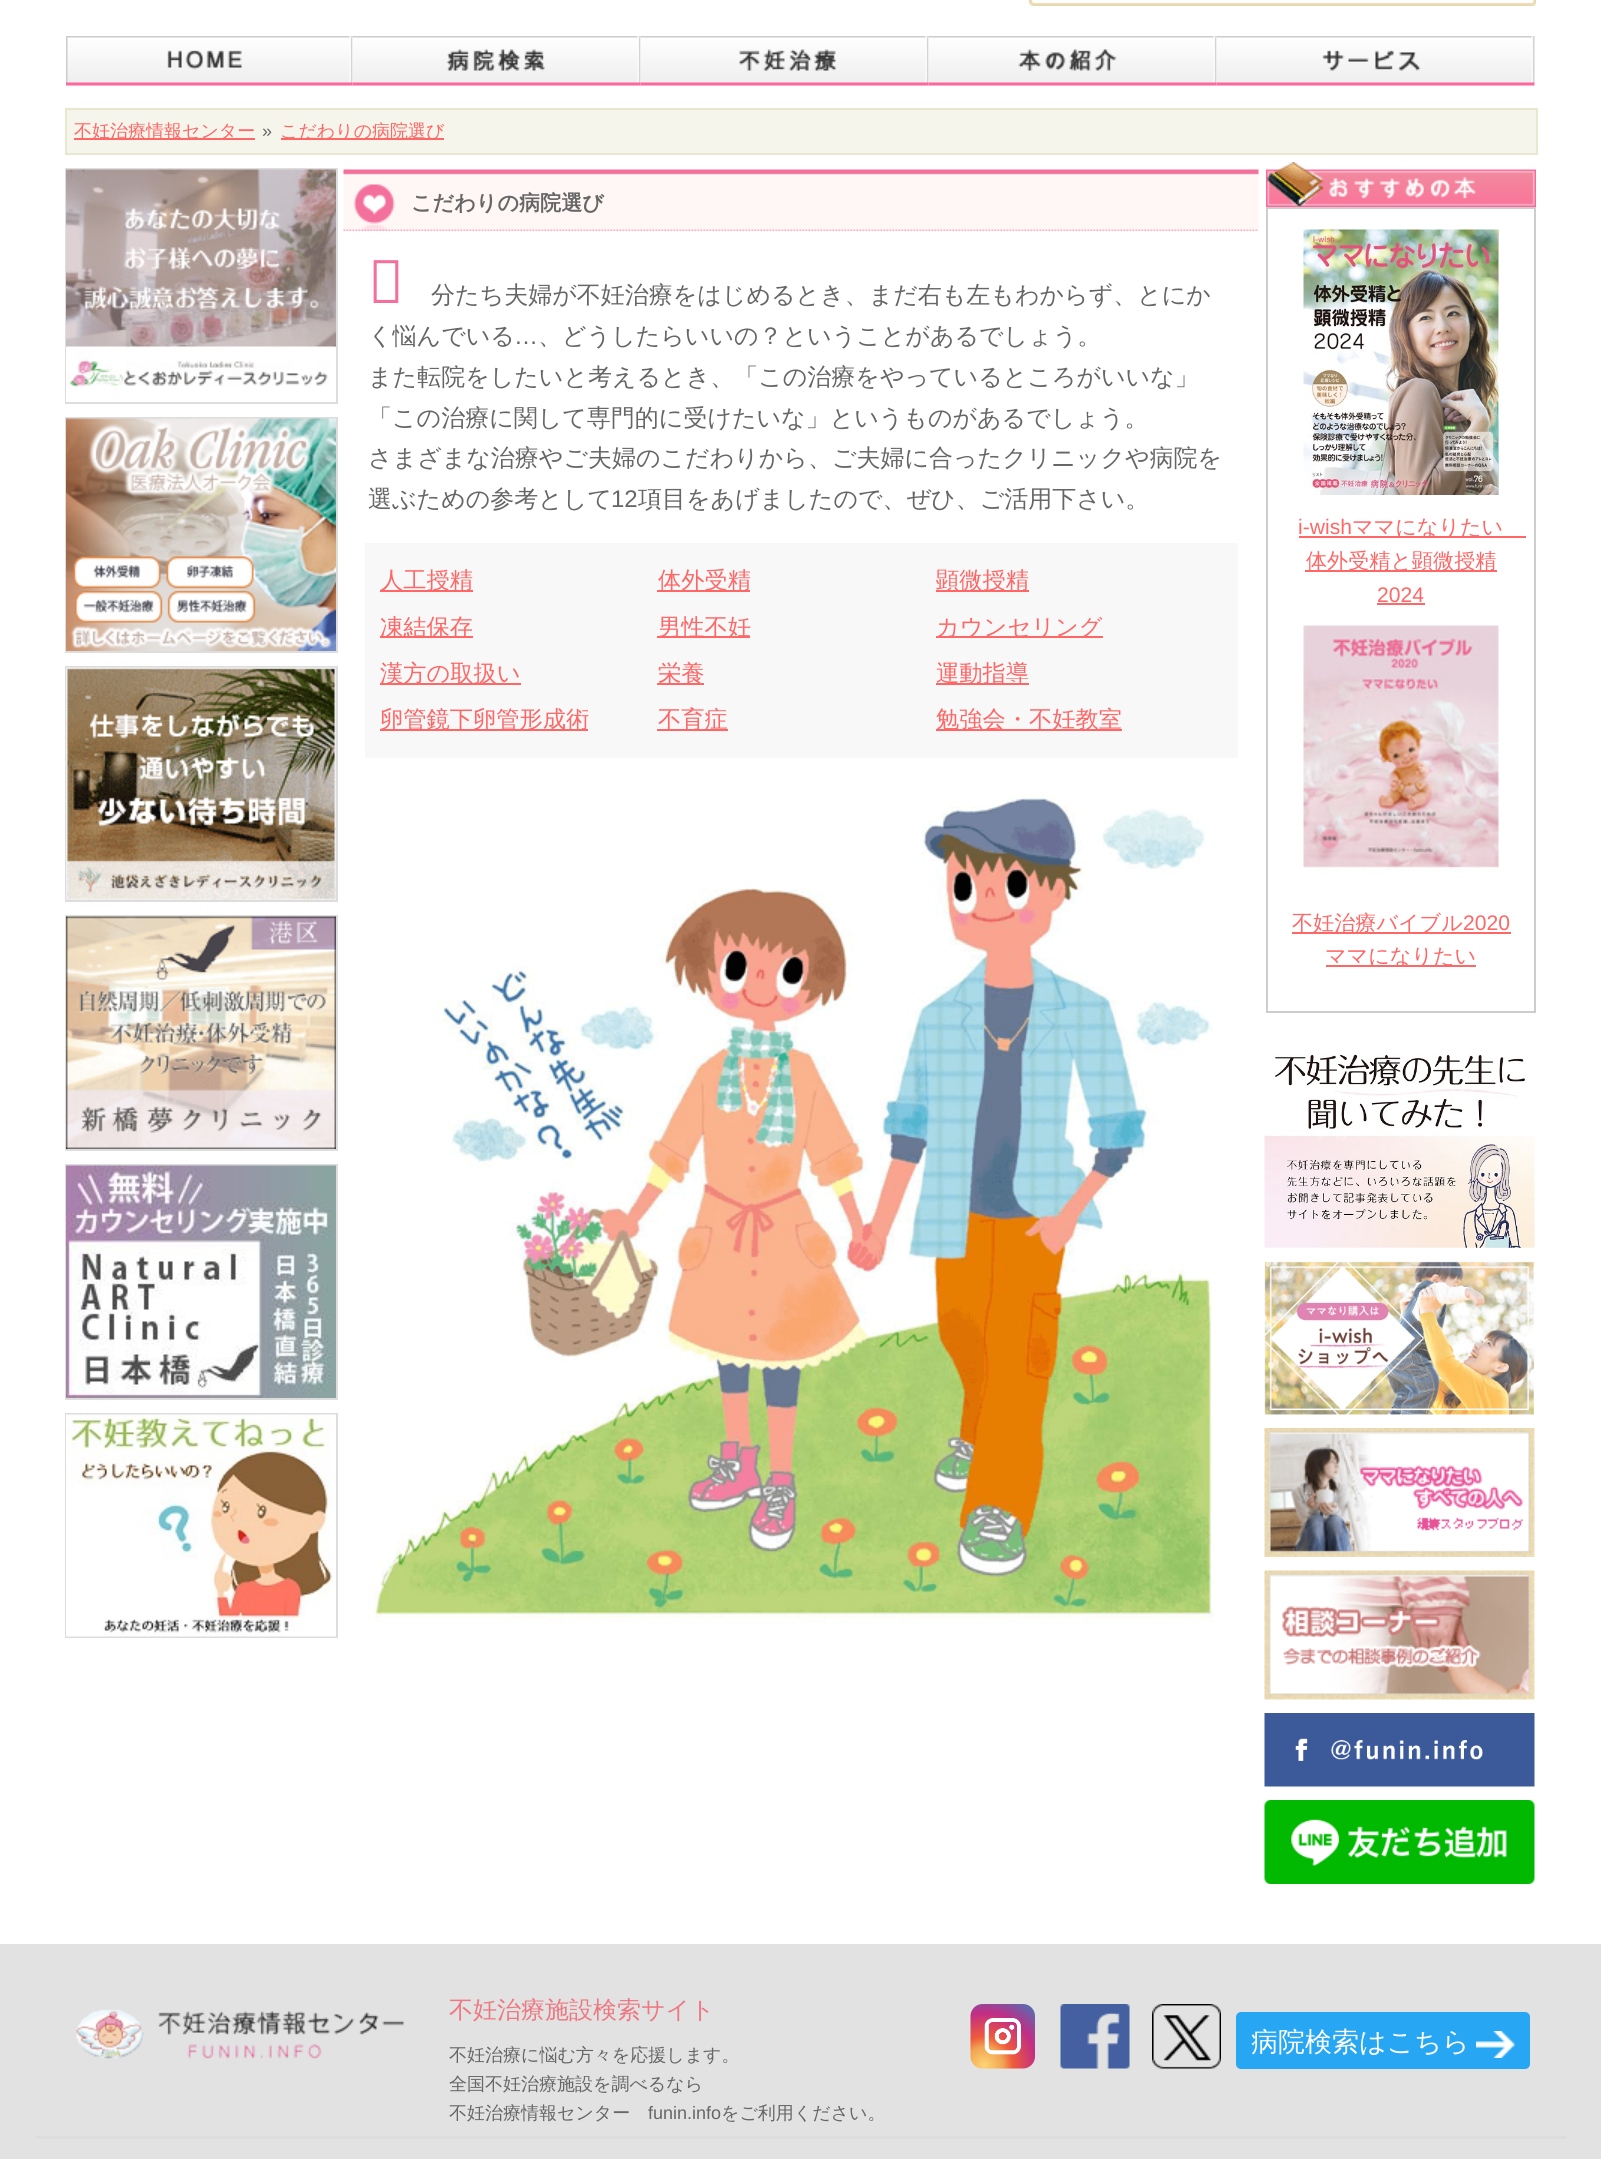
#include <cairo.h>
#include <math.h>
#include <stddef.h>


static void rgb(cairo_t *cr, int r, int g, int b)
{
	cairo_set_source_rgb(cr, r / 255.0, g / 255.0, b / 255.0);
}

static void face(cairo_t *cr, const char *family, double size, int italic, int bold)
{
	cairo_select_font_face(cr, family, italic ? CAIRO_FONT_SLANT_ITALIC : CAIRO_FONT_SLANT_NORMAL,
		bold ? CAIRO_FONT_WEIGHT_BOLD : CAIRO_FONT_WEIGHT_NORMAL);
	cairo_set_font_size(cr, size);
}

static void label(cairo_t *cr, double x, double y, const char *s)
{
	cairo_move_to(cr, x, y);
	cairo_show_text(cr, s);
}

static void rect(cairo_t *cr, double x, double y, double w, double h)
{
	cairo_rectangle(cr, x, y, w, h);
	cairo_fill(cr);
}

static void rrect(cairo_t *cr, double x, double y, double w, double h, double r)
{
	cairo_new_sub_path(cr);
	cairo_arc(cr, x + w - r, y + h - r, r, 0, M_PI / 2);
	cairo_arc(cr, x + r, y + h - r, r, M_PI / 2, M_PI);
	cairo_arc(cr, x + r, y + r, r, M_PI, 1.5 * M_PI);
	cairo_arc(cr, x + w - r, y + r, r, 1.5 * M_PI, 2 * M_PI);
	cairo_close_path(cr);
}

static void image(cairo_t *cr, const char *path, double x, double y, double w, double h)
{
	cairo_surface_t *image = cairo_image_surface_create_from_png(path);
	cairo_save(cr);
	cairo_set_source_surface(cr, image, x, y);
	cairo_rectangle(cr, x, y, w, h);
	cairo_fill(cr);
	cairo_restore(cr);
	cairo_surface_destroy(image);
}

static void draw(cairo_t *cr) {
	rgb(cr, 255, 255, 255);
	cairo_paint(cr);
	image(cr, "image0.png", 1029, 0, 507, 6);
	image(cr, "image1.png", 66, 36, 287, 50);
	image(cr, "image2.png", 352, 36, 289, 50);
	image(cr, "image3.png", 640, 36, 289, 50);
	image(cr, "image4.png", 928, 36, 289, 50);
	image(cr, "image5.png", 1216, 36, 319, 50);
	rgb(cr, 245, 245, 235);
	cairo_rectangle(cr, 66, 109, 1471, 45);
	cairo_fill_preserve(cr);
	rgb(cr, 232, 232, 208);
	cairo_stroke(cr);
	rgb(cr, 255, 102, 102);
	rect(cr, 74, 138, 181, 2);
	face(cr, "WenQuanYi Zen Hei Medium", 18, 0, 0);
	label(cr, 74, 137, "不妊治療情報センター");
	face(cr, "Liberation Sans", 18, 0, 0);
	rgb(cr, 102, 102, 102);
	label(cr, 262, 137, "»");
	rgb(cr, 255, 102, 102);
	rect(cr, 281, 138, 163, 2);
	face(cr, "WenQuanYi Zen Hei Medium", 18, 0, 0);
	label(cr, 280, 137, "こだわりの病院選び");
	cairo_rectangle(cr, 66, 169, 271, 234);
	rgb(cr, 221, 221, 221);
	cairo_stroke(cr);
	image(cr, "image6.png", 66, 169, 270, 233);
	cairo_rectangle(cr, 66, 418, 271, 234);
	cairo_stroke(cr);
	image(cr, "image7.png", 66, 418, 270, 233);
	cairo_rectangle(cr, 66, 667, 271, 234);
	cairo_stroke(cr);
	image(cr, "image8.png", 66, 667, 270, 233);
	cairo_rectangle(cr, 66, 916, 271, 234);
	cairo_stroke(cr);
	image(cr, "image9.png", 66, 916, 270, 233);
	cairo_rectangle(cr, 66, 1165, 271, 234);
	cairo_stroke(cr);
	image(cr, "image10.png", 66, 1165, 270, 233);
	cairo_rectangle(cr, 66, 1414, 271, 223);
	cairo_stroke(cr);
	image(cr, "image11.png", 66, 1414, 270, 223);
	image(cr, "image12.png", 343, 169, 916, 62);
	face(cr, "WenQuanYi Zen Hei", 21.1, 0, 1);
	rgb(cr, 102, 102, 102);
	label(cr, 411, 210, "こだわりの病院選び");
	face(cr, "Noto Sans", 60, 0, 0);
	rgb(cr, 244, 112, 156);
	label(cr, 368, 303, "自");
	face(cr, "WenQuanYi Zen Hei Medium", 24, 0, 0);
	rgb(cr, 102, 102, 102);
	label(cr, 431, 303, "分たち夫婦が不妊治療をはじめるとき、まだ右も左もわからず、とにか");
	label(cr, 368, 344, "く悩んでいる");
	face(cr, "Liberation Sans", 24, 0, 0);
	label(cr, 514, 344, "…");
	face(cr, "WenQuanYi Zen Hei Medium", 24, 0, 0);
	label(cr, 538, 344, "、どうしたらいいの？ということがあるでしょう。");
	label(cr, 368, 385, "また転院をしたいと考えるとき、「この治療をやっているところがいいな」");
	label(cr, 368, 426, "「この治療に関して専門的に受けたいな」というものがあるでしょう。");
	label(cr, 368, 466, "さまざまな治療やご夫婦のこだわりから、ご夫婦に合ったクリニックや病院を");
	label(cr, 368, 507, "選ぶための参考として");
	face(cr, "Liberation Sans", 24, 0, 0);
	label(cr, 611, 507, "12");
	face(cr, "WenQuanYi Zen Hei Medium", 24, 0, 0);
	label(cr, 638, 507, "項目をあげましたので、ぜひ、ご活用下さい。");
	rgb(cr, 248, 248, 248);
	rect(cr, 365, 543, 873, 215);
	rgb(cr, 255, 102, 102);
	rect(cr, 380, 590, 93, 2);
	face(cr, "WenQuanYi Zen Hei Medium", 23.25, 0, 0);
	label(cr, 380, 588, "人工授精");
	rect(cr, 657, 590, 93, 2);
	label(cr, 658, 588, "体外受精");
	rect(cr, 936, 590, 93, 2);
	label(cr, 936, 588, "顕微授精");
	rect(cr, 380, 636, 93, 2);
	label(cr, 380, 635, "凍結保存");
	rect(cr, 657, 636, 93, 2);
	label(cr, 658, 635, "男性不妊");
	rect(cr, 936, 636, 167, 2);
	label(cr, 936, 635, "カウンセリング");
	rect(cr, 380, 683, 141, 2);
	label(cr, 380, 681, "漢方の取扱い");
	rect(cr, 657, 683, 47, 2);
	label(cr, 658, 681, "栄養");
	rect(cr, 936, 683, 93, 2);
	label(cr, 936, 681, "運動指導");
	rect(cr, 380, 729, 208, 2);
	label(cr, 380, 727, "卵管鏡下卵管形成術");
	rect(cr, 657, 729, 71, 2);
	label(cr, 658, 727, "不育症");
	rect(cr, 936, 729, 186, 2);
	label(cr, 936, 727, "勉強会・不妊教室");
	image(cr, "image13.png", 367, 794, 847, 830);
	image(cr, "image14.png", 1266, 162, 270, 45);
	cairo_rectangle(cr, 1267, 208, 268, 804);
	rgb(cr, 205, 205, 205);
	cairo_stroke(cr);
	image(cr, "image15.png", 1303, 229, 196, 266);
	face(cr, "Liberation Sans", 21.1, 0, 0);
	rgb(cr, 255, 102, 102);
	label(cr, 1298, 534, "i-wish");
	rect(cr, 1299, 536, 227, 2);
	face(cr, "WenQuanYi Zen Hei Medium", 21.1, 0, 0);
	label(cr, 1352, 534, "ママになりたい");
	rect(cr, 1305, 570, 192, 2);
	label(cr, 1306, 568, "体外受精と顕微授精");
	face(cr, "Liberation Sans", 21.1, 0, 0);
	label(cr, 1377, 602, "2024");
	rect(cr, 1377, 603, 48, 2);
	image(cr, "image16.png", 1303, 625, 196, 248);
	rect(cr, 1292, 932, 219, 2);
	face(cr, "WenQuanYi Zen Hei Medium", 21.1, 0, 0);
	label(cr, 1292, 930, "不妊治療バイブル");
	face(cr, "Liberation Sans", 21.1, 0, 0);
	label(cr, 1463, 930, "2020");
	rect(cr, 1326, 965, 150, 2);
	face(cr, "WenQuanYi Zen Hei Medium", 21.1, 0, 0);
	label(cr, 1325, 963, "ママになりたい");
	image(cr, "image17.png", 1264, 1054, 271, 194);
	image(cr, "image18.png", 1264, 1261, 271, 154);
	image(cr, "image19.png", 1264, 1428, 271, 129);
	image(cr, "image20.png", 1264, 1570, 271, 130);
	image(cr, "image21.png", 1264, 1713, 271, 74);
	image(cr, "image22.png", 1264, 1800, 271, 84);
	rgb(cr, 226, 226, 226);
	rect(cr, 0, 1944, 1601, 215);
	rgb(cr, 221, 221, 221);
	rect(cr, 36, 2136, 1530, 3);
	image(cr, "image23.png", 76, 2009, 328, 50);
	face(cr, "WenQuanYi Zen Hei Medium", 24, 0, 0);
	rgb(cr, 237, 120, 130);
	label(cr, 449, 2018, "不妊治療施設検索サイト");
	face(cr, "WenQuanYi Zen Hei Medium", 18, 0, 0);
	rgb(cr, 102, 102, 102);
	label(cr, 449, 2061, "不妊治療に悩む方々を応援します。");
	label(cr, 449, 2090, "全国不妊治療施設を調べるなら");
	label(cr, 449, 2119, "不妊治療情報センター");
	face(cr, "Liberation Sans", 18, 0, 0);
	label(cr, 648, 2119, "funin.info");
	face(cr, "WenQuanYi Zen Hei Medium", 18, 0, 0);
	label(cr, 721, 2119, "をご利用ください。");
	image(cr, "image24.png", 970, 2004, 65, 65);
	image(cr, "image25.png", 1060, 2004, 70, 65);
	image(cr, "image26.png", 1152, 2004, 69, 65);
	rgb(cr, 39, 166, 243);
	rrect(cr, 1236, 2012, 294, 57, 5);
	cairo_fill(cr);
	face(cr, "WenQuanYi Zen Hei Medium", 27, 0, 0);
	rgb(cr, 255, 255, 255);
	label(cr, 1251, 2051, "病院検索はこちら");
	image(cr, "image27.png", 1476, 2031, 39, 27);
}

int main(void) {
	cairo_surface_t *surface = cairo_image_surface_create(CAIRO_FORMAT_RGB24, 1601, 2159);
	cairo_t *cr = cairo_create(surface);
	cairo_font_options_t *options = cairo_font_options_create();
	cairo_font_options_set_hint_metrics(options, CAIRO_HINT_METRICS_OFF);
	cairo_font_options_set_hint_style(options, CAIRO_HINT_STYLE_NONE);
	cairo_set_font_options(cr, options);
	cairo_set_miter_limit(cr, 4);
	draw(cr);
	cairo_surface_write_to_png(surface, "render.png");
	cairo_font_options_destroy(options);
	cairo_destroy(cr);
	cairo_surface_destroy(surface);
	return 0;
}
